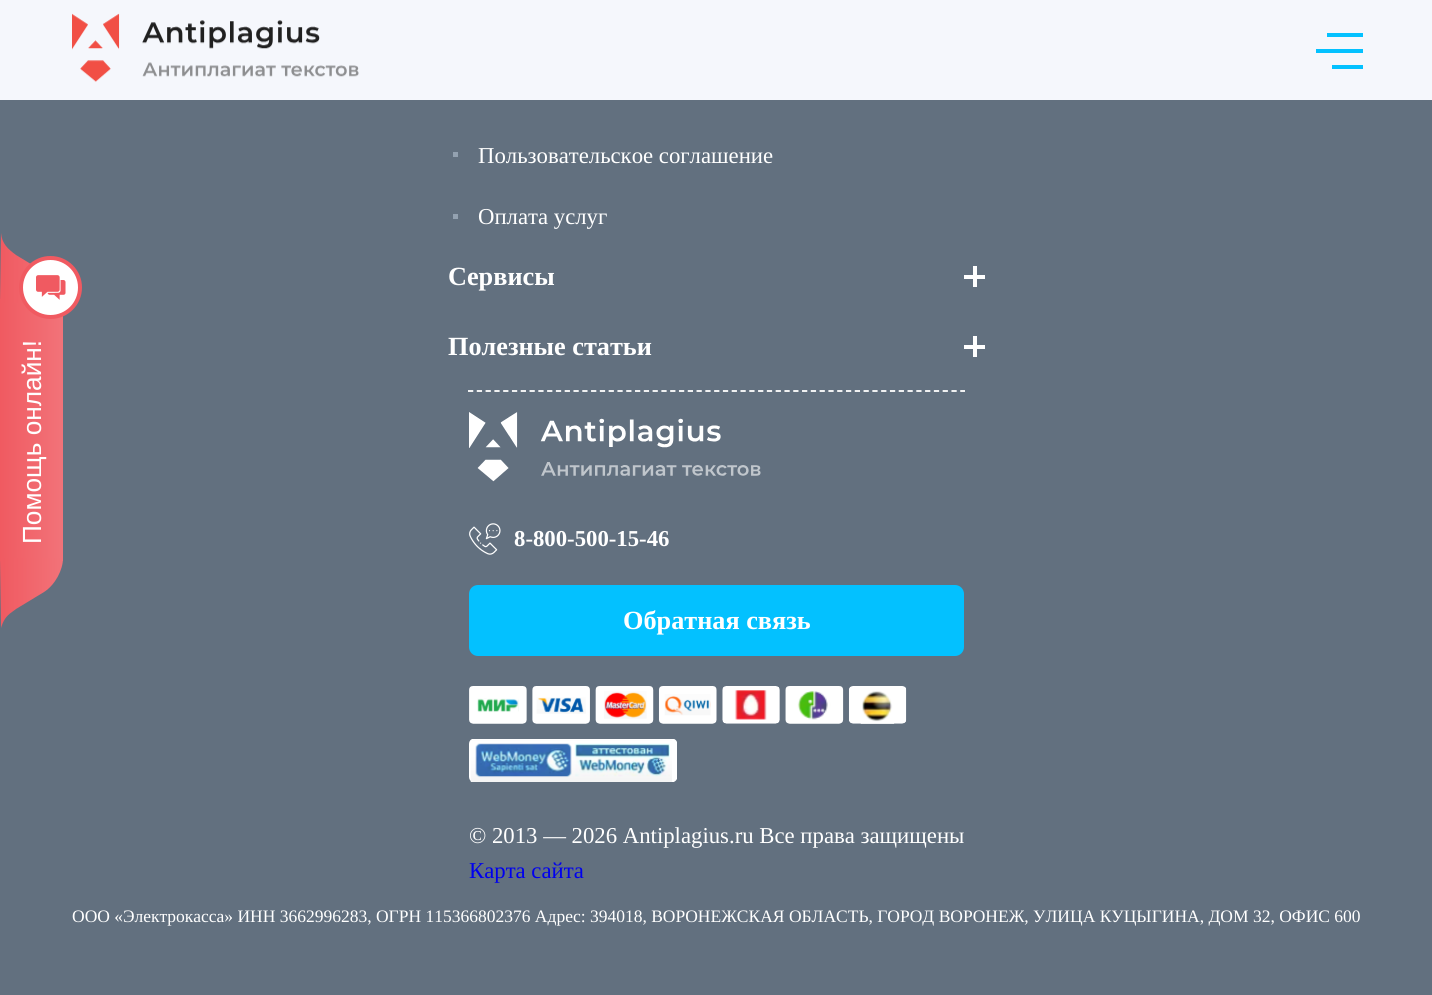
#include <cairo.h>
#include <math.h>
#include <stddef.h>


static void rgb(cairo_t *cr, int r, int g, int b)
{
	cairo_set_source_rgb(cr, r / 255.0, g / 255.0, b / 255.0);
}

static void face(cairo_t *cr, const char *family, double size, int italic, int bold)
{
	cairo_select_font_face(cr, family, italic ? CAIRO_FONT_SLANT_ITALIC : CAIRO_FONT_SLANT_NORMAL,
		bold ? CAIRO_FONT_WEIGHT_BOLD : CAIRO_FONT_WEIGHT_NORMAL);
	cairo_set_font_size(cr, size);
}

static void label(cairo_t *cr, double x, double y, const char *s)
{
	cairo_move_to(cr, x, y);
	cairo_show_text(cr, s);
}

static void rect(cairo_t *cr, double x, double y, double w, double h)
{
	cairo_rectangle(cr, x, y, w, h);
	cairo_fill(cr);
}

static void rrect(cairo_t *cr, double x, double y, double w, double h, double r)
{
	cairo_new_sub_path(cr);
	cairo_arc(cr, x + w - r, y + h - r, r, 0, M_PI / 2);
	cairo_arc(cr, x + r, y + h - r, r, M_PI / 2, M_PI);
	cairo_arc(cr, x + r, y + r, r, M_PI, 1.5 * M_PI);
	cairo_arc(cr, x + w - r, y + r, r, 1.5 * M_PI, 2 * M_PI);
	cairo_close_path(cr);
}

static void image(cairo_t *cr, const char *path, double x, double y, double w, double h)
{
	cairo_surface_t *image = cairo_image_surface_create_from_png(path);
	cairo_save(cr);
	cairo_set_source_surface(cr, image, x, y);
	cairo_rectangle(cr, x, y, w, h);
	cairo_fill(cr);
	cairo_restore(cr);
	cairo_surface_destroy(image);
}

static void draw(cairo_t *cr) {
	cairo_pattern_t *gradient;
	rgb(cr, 98, 112, 127);
	cairo_paint(cr);
	rgb(cr, 245, 247, 252);
	rect(cr, 0, 0, 1432, 100);
	image(cr, "image0.png", 72, 13, 287, 69);
	rgb(cr, 3, 193, 255);
	rect(cr, 1327, 33, 36, 4);
	rect(cr, 1316, 49, 47, 4);
	rect(cr, 1332, 65, 31, 4);
	gradient = cairo_pattern_create_linear(63, 430, 0, 430);
	cairo_pattern_add_color_stop_rgba(gradient, 0, 0.949, 0.451, 0.475, 1);
	cairo_pattern_add_color_stop_rgba(gradient, 1, 0.941, 0.353, 0.38, 1);
	cairo_set_source(cr, gradient);
	cairo_pattern_destroy(gradient);
	rect(cr, 0, 299, 63, 262);
	rgb(cr, 240, 90, 97);
	cairo_set_fill_rule(cr, CAIRO_FILL_RULE_EVEN_ODD);
	cairo_new_path(cr);
	cairo_move_to(cr, 1, 233);
	cairo_line_to(cr, 1, 233);
	cairo_close_path(cr);
	cairo_move_to(cr, 16, 255);
	cairo_curve_to(cr, 8, 249, 2, 244, 1, 233);
	cairo_line_to(cr, 0, 303);
	cairo_line_to(cr, 63, 303);
	cairo_curve_to(cr, 62, 292, 54, 278, 44, 272);
	cairo_close_path(cr);
	cairo_fill(cr);
	gradient = cairo_pattern_create_linear(0.5, 270, 63, 270);
	cairo_pattern_add_color_stop_rgba(gradient, 0, 1, 1, 1, 0);
	cairo_pattern_add_color_stop_rgba(gradient, 1, 1, 1, 1, 0.15);
	cairo_set_source(cr, gradient);
	cairo_pattern_destroy(gradient);
	cairo_new_path(cr);
	cairo_move_to(cr, 1, 233);
	cairo_line_to(cr, 1, 233);
	cairo_close_path(cr);
	cairo_move_to(cr, 16, 255);
	cairo_curve_to(cr, 8, 249, 2, 244, 1, 233);
	cairo_line_to(cr, 0, 303);
	cairo_line_to(cr, 63, 303);
	cairo_curve_to(cr, 62, 292, 54, 278, 44, 272);
	cairo_close_path(cr);
	cairo_fill(cr);
	rgb(cr, 255, 255, 255);
	cairo_arc(cr, 50.5, 287.5, 29.5, 0, 2 * M_PI);
	cairo_fill_preserve(cr);
	rgb(cr, 240, 90, 97);
	cairo_set_line_width(cr, 4);
	cairo_stroke(cr);
	image(cr, "image1.png", 36, 275, 30, 25);
	face(cr, "Liberation Sans", 26.25, 0, 0);
	rgb(cr, 255, 255, 255);
	cairo_save(cr);
	cairo_translate(cr, 41, 544);
	cairo_rotate(cr, -90 * M_PI / 180);
	label(cr, 0, 0, "Помощь онлайн!");
	cairo_restore(cr);
	rgb(cr, 240, 90, 97);
	cairo_set_fill_rule(cr, CAIRO_FILL_RULE_WINDING);
	cairo_new_path(cr);
	cairo_move_to(cr, 16, 609);
	cairo_line_to(cr, 44, 592);
	cairo_curve_to(cr, 55, 585, 63, 570, 63, 558);
	cairo_line_to(cr, 0, 558);
	cairo_line_to(cr, 1, 628);
	cairo_curve_to(cr, 3, 621, 6, 616, 12, 612);
	cairo_close_path(cr);
	cairo_fill(cr);
	gradient = cairo_pattern_create_linear(0.5, 594, 63, 594);
	cairo_pattern_add_color_stop_rgba(gradient, 0, 1, 1, 1, 0);
	cairo_pattern_add_color_stop_rgba(gradient, 1, 1, 1, 1, 0.15);
	cairo_set_source(cr, gradient);
	cairo_pattern_destroy(gradient);
	cairo_new_path(cr);
	cairo_move_to(cr, 16, 609);
	cairo_line_to(cr, 44, 592);
	cairo_curve_to(cr, 55, 585, 63, 570, 63, 558);
	cairo_line_to(cr, 0, 558);
	cairo_line_to(cr, 1, 628);
	cairo_curve_to(cr, 3, 621, 6, 616, 12, 612);
	cairo_close_path(cr);
	cairo_fill(cr);
	rgb(cr, 147, 161, 176);
	rect(cr, 453, 152, 5, 5);
	face(cr, "Liberation Serif", 22.75, 0, 0);
	rgb(cr, 255, 255, 255);
	label(cr, 478, 163, "Пользовательское соглашение");
	rgb(cr, 147, 161, 176);
	rect(cr, 453, 214, 5, 5);
	rgb(cr, 255, 255, 255);
	label(cr, 478, 224, "Оплата услуг");
	face(cr, "Liberation Serif", 26.25, 0, 1);
	label(cr, 448, 285, "Сервисы");
	rect(cr, 973, 266, 4, 21);
	rect(cr, 964, 275, 21, 4);
	label(cr, 448, 355, "Полезные статьи");
	rect(cr, 973, 336, 4, 21);
	rect(cr, 964, 345, 21, 4);
	cairo_new_path(cr);
	cairo_move_to(cr, 468, 391);
	cairo_line_to(cr, 965, 391);
	cairo_set_line_width(cr, 1.8);
	cairo_set_dash(cr, (double[]){5.25, 3.54}, 2, 0);
	cairo_stroke(cr);
	image(cr, "image2.png", 469, 412, 292, 70);
	image(cr, "image3.png", 469, 523, 32, 32);
	face(cr, "Liberation Serif", 22.75, 0, 1);
	label(cr, 514, 546, "8-800-500-15-46");
	rgb(cr, 3, 193, 255);
	rrect(cr, 469, 585, 495, 71, 9);
	cairo_fill(cr);
	face(cr, "Liberation Serif", 26.25, 0, 1);
	rgb(cr, 255, 255, 255);
	label(cr, 623, 629, "Обратная связь");
	image(cr, "image4.png", 469, 686, 438, 38);
	image(cr, "image5.png", 469, 739, 208, 43);
	face(cr, "Liberation Serif", 22.75, 0, 0);
	label(cr, 469, 843, "© 2013 — 2026 Antiplagius.ru Все права защищены");
	rgb(cr, 0, 0, 238);
	label(cr, 469, 878, "Карта сайта");
	face(cr, "Liberation Serif", 17.5, 0, 0);
	rgb(cr, 255, 255, 255);
	label(cr, 72, 922, "ООО «Электрокасса» ИНН 3662996283, ОГРН 115366802376 Адрес: 394018, ВОРОНЕЖСКАЯ ОБЛАСТЬ, ГОРОД ВОРОНЕЖ, УЛИЦА КУЦЫГИНА, ДОМ 32, ОФИС 600");
}

int main(void) {
	cairo_surface_t *surface = cairo_image_surface_create(CAIRO_FORMAT_RGB24, 1432, 995);
	cairo_t *cr = cairo_create(surface);
	cairo_font_options_t *options = cairo_font_options_create();
	cairo_font_options_set_hint_metrics(options, CAIRO_HINT_METRICS_OFF);
	cairo_font_options_set_hint_style(options, CAIRO_HINT_STYLE_NONE);
	cairo_set_font_options(cr, options);
	cairo_set_miter_limit(cr, 4);
	draw(cr);
	cairo_surface_write_to_png(surface, "render.png");
	cairo_font_options_destroy(options);
	cairo_destroy(cr);
	cairo_surface_destroy(surface);
	return 0;
}
